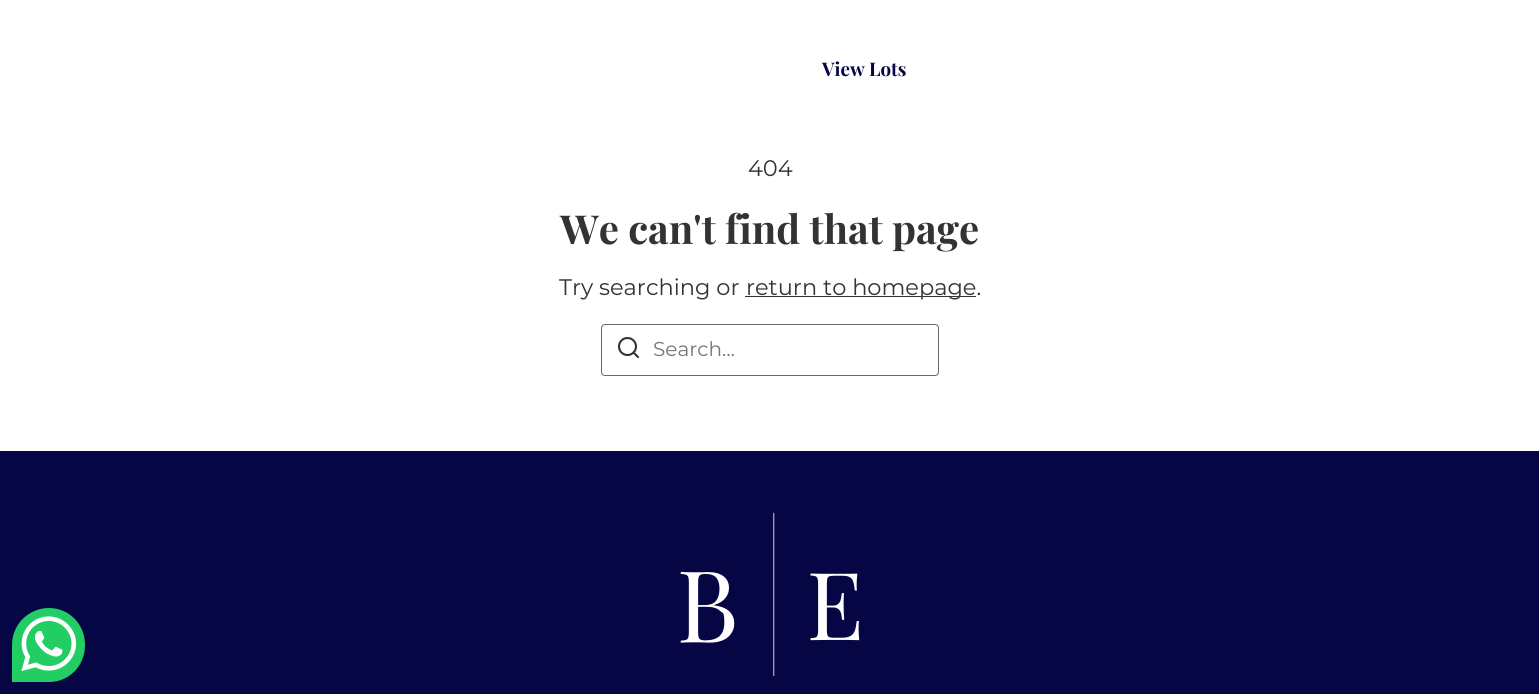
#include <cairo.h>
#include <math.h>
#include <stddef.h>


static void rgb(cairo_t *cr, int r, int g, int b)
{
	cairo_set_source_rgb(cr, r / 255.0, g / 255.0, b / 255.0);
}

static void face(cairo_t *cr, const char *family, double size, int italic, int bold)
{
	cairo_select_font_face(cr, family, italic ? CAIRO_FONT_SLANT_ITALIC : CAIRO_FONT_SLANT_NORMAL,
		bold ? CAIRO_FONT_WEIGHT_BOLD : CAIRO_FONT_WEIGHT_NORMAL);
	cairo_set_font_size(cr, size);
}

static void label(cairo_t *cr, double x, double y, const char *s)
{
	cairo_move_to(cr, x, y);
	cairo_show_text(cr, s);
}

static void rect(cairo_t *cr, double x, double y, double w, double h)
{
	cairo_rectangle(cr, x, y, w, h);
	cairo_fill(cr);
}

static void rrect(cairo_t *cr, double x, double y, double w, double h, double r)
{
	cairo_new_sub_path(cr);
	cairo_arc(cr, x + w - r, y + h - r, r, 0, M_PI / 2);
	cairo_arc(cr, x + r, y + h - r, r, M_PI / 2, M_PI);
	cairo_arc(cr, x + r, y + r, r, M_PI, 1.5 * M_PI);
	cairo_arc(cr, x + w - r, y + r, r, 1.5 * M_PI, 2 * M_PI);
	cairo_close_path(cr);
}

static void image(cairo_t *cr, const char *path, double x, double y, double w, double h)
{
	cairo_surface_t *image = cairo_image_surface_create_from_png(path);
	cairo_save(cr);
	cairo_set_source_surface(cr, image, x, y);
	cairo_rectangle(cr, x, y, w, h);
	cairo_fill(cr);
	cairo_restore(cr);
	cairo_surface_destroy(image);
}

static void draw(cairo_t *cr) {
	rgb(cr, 255, 255, 255);
	cairo_paint(cr);
	face(cr, "Playfair Display", 18.75, 0, 1);
	rgb(cr, 6, 6, 68);
	label(cr, 822, 76, "View Lots");
	face(cr, "Montserrat", 22.5, 0, 0);
	rgb(cr, 51, 51, 51);
	label(cr, 748, 176, "404");
	face(cr, "Playfair Display", 40, 0, 1);
	label(cr, 560, 244, "We can't find that page");
	face(cr, "Montserrat", 22.5, 0, 0);
	label(cr, 559, 295, "Try searching or");
	rect(cr, 745, 296, 231, 1);
	label(cr, 746, 295, "return to homepage.");
	rrect(cr, 601.5, 324.5, 337, 51, 3.5);
	rgb(cr, 102, 102, 102);
	cairo_set_line_width(cr, 1);
	cairo_stroke(cr);
	cairo_arc(cr, 627.5, 346.5, 8.5, 0, 2 * M_PI);
	rgb(cr, 51, 51, 51);
	cairo_set_line_width(cr, 2.1);
	cairo_stroke(cr);
	cairo_new_path(cr);
	cairo_move_to(cr, 638, 357);
	cairo_line_to(cr, 633.5, 352.5);
	cairo_set_line_cap(cr, CAIRO_LINE_CAP_ROUND);
	cairo_set_line_join(cr, CAIRO_LINE_JOIN_ROUND);
	cairo_stroke(cr);
	face(cr, "Montserrat", 20, 0, 0);
	rgb(cr, 117, 117, 117);
	label(cr, 653, 356, "Search…");
	rgb(cr, 6, 6, 68);
	rect(cr, 0, 451, 1539, 243);
	image(cr, "image0.png", 680, 512, 180, 165);
	rgb(cr, 34, 205, 99);
	cairo_new_path(cr);
	cairo_move_to(cr, 49, 608);
	cairo_curve_to(cr, 69, 608, 85, 624, 85, 645);
	cairo_curve_to(cr, 85, 666, 69, 682, 49, 682);
	cairo_line_to(cr, 12, 682);
	cairo_line_to(cr, 12, 645);
	cairo_curve_to(cr, 12, 624, 29, 608, 49, 608);
	cairo_close_path(cr);
	cairo_fill(cr);
	image(cr, "image1.png", 21, 616, 56, 55);
}

int main(void) {
	cairo_surface_t *surface = cairo_image_surface_create(CAIRO_FORMAT_RGB24, 1539, 694);
	cairo_t *cr = cairo_create(surface);
	cairo_font_options_t *options = cairo_font_options_create();
	cairo_font_options_set_hint_metrics(options, CAIRO_HINT_METRICS_OFF);
	cairo_font_options_set_hint_style(options, CAIRO_HINT_STYLE_NONE);
	cairo_set_font_options(cr, options);
	cairo_set_miter_limit(cr, 4);
	draw(cr);
	cairo_surface_write_to_png(surface, "render.png");
	cairo_font_options_destroy(options);
	cairo_destroy(cr);
	cairo_surface_destroy(surface);
	return 0;
}
